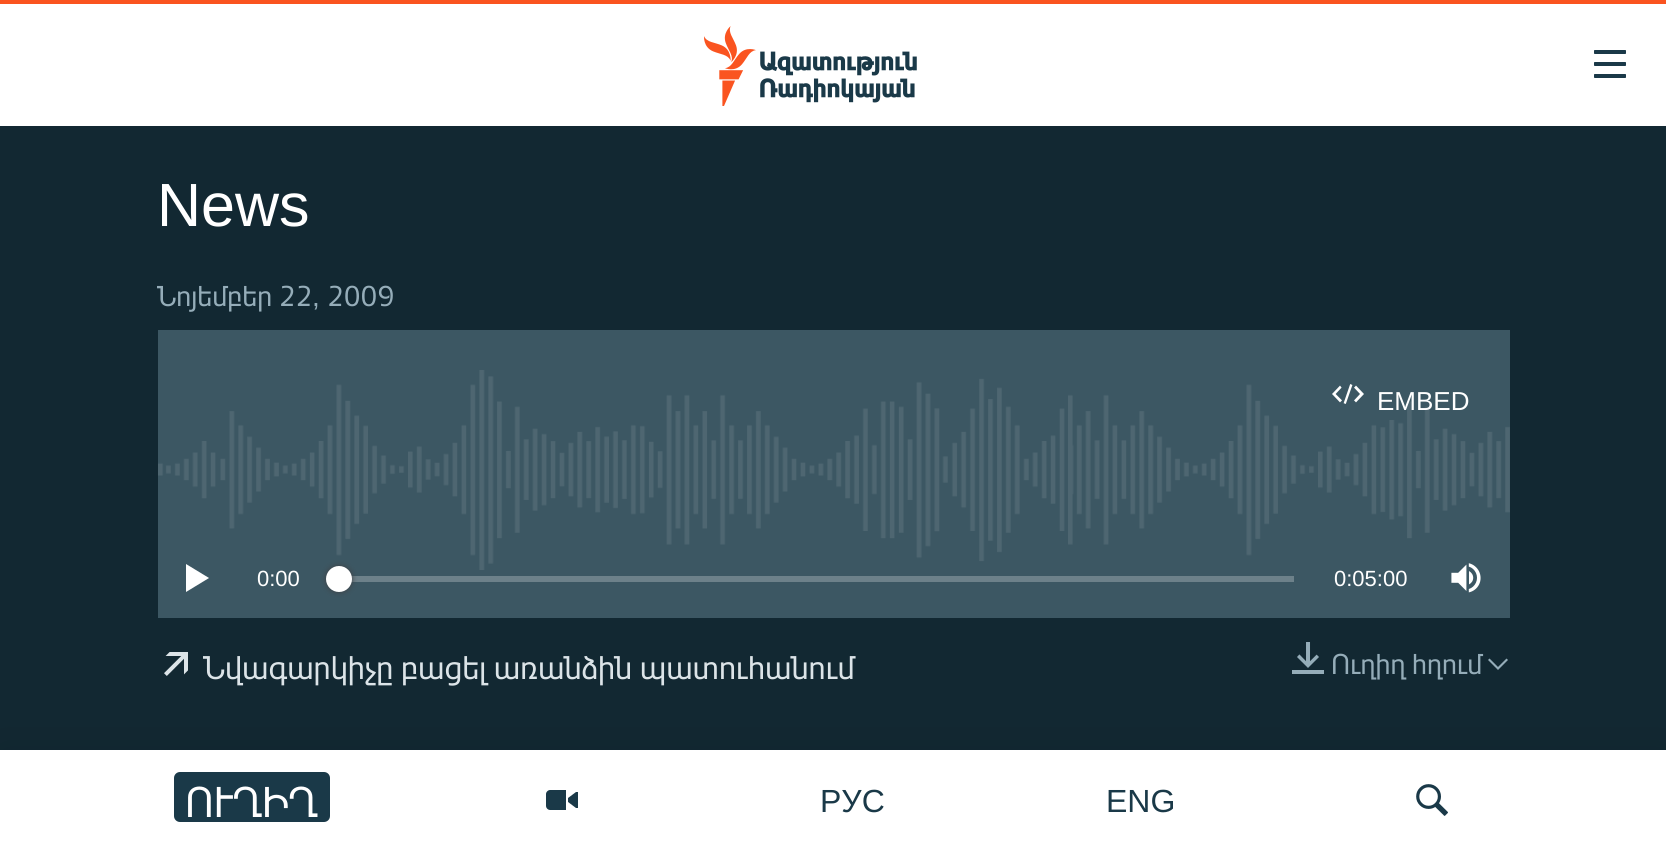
#include <cairo.h>
#include <math.h>
#include <stddef.h>


static void rgb(cairo_t *cr, int r, int g, int b)
{
	cairo_set_source_rgb(cr, r / 255.0, g / 255.0, b / 255.0);
}

static void face(cairo_t *cr, const char *family, double size, int italic, int bold)
{
	cairo_select_font_face(cr, family, italic ? CAIRO_FONT_SLANT_ITALIC : CAIRO_FONT_SLANT_NORMAL,
		bold ? CAIRO_FONT_WEIGHT_BOLD : CAIRO_FONT_WEIGHT_NORMAL);
	cairo_set_font_size(cr, size);
}

static void label(cairo_t *cr, double x, double y, const char *s)
{
	cairo_move_to(cr, x, y);
	cairo_show_text(cr, s);
}

static void rect(cairo_t *cr, double x, double y, double w, double h)
{
	cairo_rectangle(cr, x, y, w, h);
	cairo_fill(cr);
}

static void rrect(cairo_t *cr, double x, double y, double w, double h, double r)
{
	cairo_new_sub_path(cr);
	cairo_arc(cr, x + w - r, y + h - r, r, 0, M_PI / 2);
	cairo_arc(cr, x + r, y + h - r, r, M_PI / 2, M_PI);
	cairo_arc(cr, x + r, y + r, r, M_PI, 1.5 * M_PI);
	cairo_arc(cr, x + w - r, y + r, r, 1.5 * M_PI, 2 * M_PI);
	cairo_close_path(cr);
}

static void soft_shadow(cairo_t *cr, double x, double y, double w, double h, double r, double blur, double alpha)
{
	cairo_push_group_with_content(cr, CAIRO_CONTENT_ALPHA);
	cairo_set_operator(cr, CAIRO_OPERATOR_SOURCE);
	for (int i = 15; i >= -15 && fmin(w, h) + blur * i / 3 > 0; i -= 2) {
		double e = blur * i / 6;
		cairo_set_source_rgba(cr, 0, 0, 0, alpha * erfc((i - 1) / 8.5) / 2);
		rrect(cr, x - e, y - e, w + 2 * e, h + 2 * e, fmax(0, fmin(r + e + blur * .6, fmin(w, h) / 2 + e)));
		cairo_fill(cr);
	}
	cairo_pattern_t *soft = cairo_pop_group(cr);
	cairo_mask(cr, soft);
	cairo_pattern_destroy(soft);
}

static void image(cairo_t *cr, const char *path, double x, double y, double w, double h)
{
	cairo_surface_t *image = cairo_image_surface_create_from_png(path);
	cairo_save(cr);
	cairo_set_source_surface(cr, image, x, y);
	cairo_rectangle(cr, x, y, w, h);
	cairo_fill(cr);
	cairo_restore(cr);
	cairo_surface_destroy(image);
}

static void draw(cairo_t *cr) {
	rgb(cr, 255, 255, 255);
	cairo_paint(cr);
	rgb(cr, 18, 40, 50);
	rect(cr, 0, 126, 1666, 624);
	face(cr, "Liberation Sans", 61, 0, 0);
	rgb(cr, 255, 255, 255);
	label(cr, 157, 226, "News");
	face(cr, "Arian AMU", 28, 0, 0);
	rgb(cr, 149, 173, 185);
	label(cr, 157, 306, "Նոյեմբեր 22");
	face(cr, "Liberation Sans", 28, 0, 0);
	label(cr, 312, 306, ",");
	face(cr, "Arian AMU", 28, 0, 0);
	label(cr, 327, 306, "2009");
	rgb(cr, 60, 87, 99);
	rect(cr, 158, 330, 1352, 288);
	image(cr, "image0.png", 158, 370, 1352, 200);
	image(cr, "image1.png", 1332, 384, 32, 20);
	face(cr, "Liberation Sans", 26, 0, 0);
	rgb(cr, 255, 255, 255);
	label(cr, 1377, 410, "EMBED");
	cairo_new_path(cr);
	cairo_move_to(cr, 186, 592);
	cairo_line_to(cr, 209, 578);
	cairo_line_to(cr, 186, 564);
	cairo_close_path(cr);
	cairo_fill(cr);
	face(cr, "Liberation Sans", 22, 0, 0);
	label(cr, 257, 586, "0:00");
	rgb(cr, 109, 129, 138);
	rect(cr, 351, 576, 943, 6);
	rgb(cr, 65, 65, 68);
	soft_shadow(cr, 326, 566, 26, 26, 13, 3, 1);
	rgb(cr, 255, 255, 255);
	cairo_arc(cr, 339, 579, 13, 0, 2 * M_PI);
	cairo_fill(cr);
	label(cr, 1334, 586, "0:05:00");
	image(cr, "image2.png", 1451, 563, 30, 30);
	image(cr, "image3.png", 164, 652, 24, 24);
	face(cr, "Arian AMU", 32, 0, 0);
	rgb(cr, 220, 228, 232);
	label(cr, 203, 679, "Նվագարկիչը բացել առանձին պատուհանում");
	image(cr, "image4.png", 1292, 642, 32, 32);
	face(cr, "Arian AMU", 28, 0, 0);
	rgb(cr, 149, 173, 185);
	label(cr, 1331, 674, "Ուղիղ հղում");
	cairo_new_path(cr);
	cairo_move_to(cr, 1488, 660);
	cairo_line_to(cr, 1498, 670);
	cairo_line_to(cr, 1508, 660);
	cairo_line_to(cr, 1506.5, 658.5);
	cairo_line_to(cr, 1498, 667);
	cairo_line_to(cr, 1489.5, 658.5);
	cairo_close_path(cr);
	cairo_fill(cr);
	rgb(cr, 250, 84, 32);
	rect(cr, 0, 0, 1666, 4);
	image(cr, "image5.png", 704, 26, 213, 80);
	image(cr, "image6.png", 1594, 50, 32, 28);
	rgb(cr, 0, 0, 0);
	soft_shadow(cr, 0, 750, 1666, 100, 0, 20, 0.1);
	rgb(cr, 255, 255, 255);
	rect(cr, 0, 750, 1666, 99);
	rgb(cr, 26, 57, 72);
	rrect(cr, 174, 772, 156, 50, 6);
	cairo_fill(cr);
	face(cr, "Arian AMU", 42, 0, 0);
	rgb(cr, 255, 255, 255);
	label(cr, 185, 817, "ՈՒՂԻՂ");
	image(cr, "image7.png", 546, 790, 32, 20);
	face(cr, "Liberation Sans", 32, 0, 0);
	rgb(cr, 26, 57, 72);
	label(cr, 820, 812, "РУС");
	label(cr, 1106, 812, "ENG");
	image(cr, "image8.png", 1416, 784, 32, 32);
}

int main(void) {
	cairo_surface_t *surface = cairo_image_surface_create(CAIRO_FORMAT_RGB24, 1666, 849);
	cairo_t *cr = cairo_create(surface);
	cairo_font_options_t *options = cairo_font_options_create();
	cairo_font_options_set_hint_metrics(options, CAIRO_HINT_METRICS_OFF);
	cairo_font_options_set_hint_style(options, CAIRO_HINT_STYLE_NONE);
	cairo_set_font_options(cr, options);
	cairo_set_miter_limit(cr, 4);
	draw(cr);
	cairo_surface_write_to_png(surface, "render.png");
	cairo_font_options_destroy(options);
	cairo_destroy(cr);
	cairo_surface_destroy(surface);
	return 0;
}
